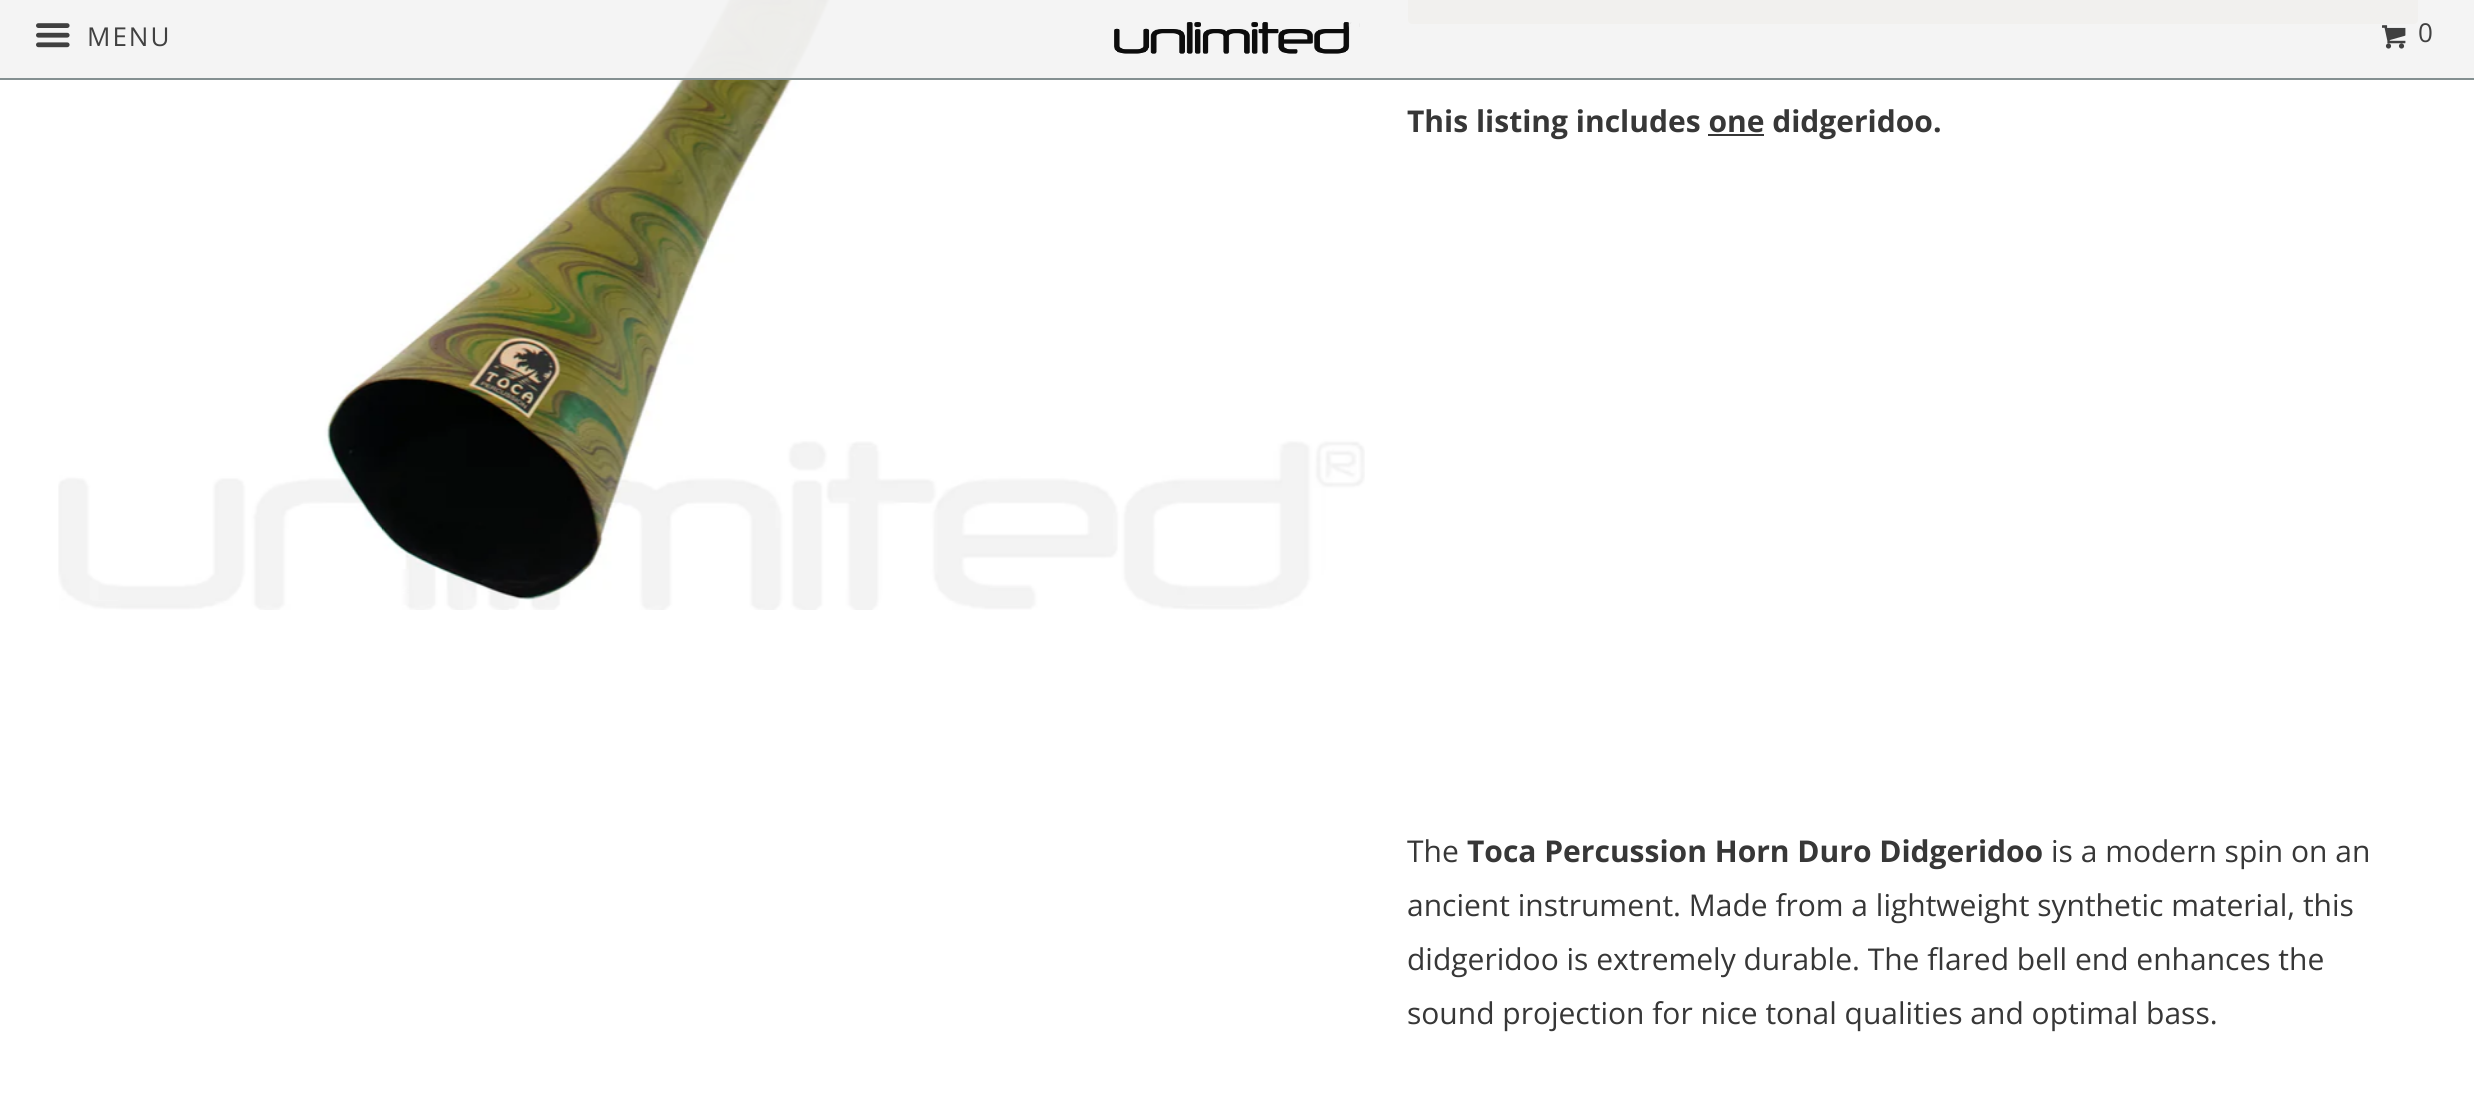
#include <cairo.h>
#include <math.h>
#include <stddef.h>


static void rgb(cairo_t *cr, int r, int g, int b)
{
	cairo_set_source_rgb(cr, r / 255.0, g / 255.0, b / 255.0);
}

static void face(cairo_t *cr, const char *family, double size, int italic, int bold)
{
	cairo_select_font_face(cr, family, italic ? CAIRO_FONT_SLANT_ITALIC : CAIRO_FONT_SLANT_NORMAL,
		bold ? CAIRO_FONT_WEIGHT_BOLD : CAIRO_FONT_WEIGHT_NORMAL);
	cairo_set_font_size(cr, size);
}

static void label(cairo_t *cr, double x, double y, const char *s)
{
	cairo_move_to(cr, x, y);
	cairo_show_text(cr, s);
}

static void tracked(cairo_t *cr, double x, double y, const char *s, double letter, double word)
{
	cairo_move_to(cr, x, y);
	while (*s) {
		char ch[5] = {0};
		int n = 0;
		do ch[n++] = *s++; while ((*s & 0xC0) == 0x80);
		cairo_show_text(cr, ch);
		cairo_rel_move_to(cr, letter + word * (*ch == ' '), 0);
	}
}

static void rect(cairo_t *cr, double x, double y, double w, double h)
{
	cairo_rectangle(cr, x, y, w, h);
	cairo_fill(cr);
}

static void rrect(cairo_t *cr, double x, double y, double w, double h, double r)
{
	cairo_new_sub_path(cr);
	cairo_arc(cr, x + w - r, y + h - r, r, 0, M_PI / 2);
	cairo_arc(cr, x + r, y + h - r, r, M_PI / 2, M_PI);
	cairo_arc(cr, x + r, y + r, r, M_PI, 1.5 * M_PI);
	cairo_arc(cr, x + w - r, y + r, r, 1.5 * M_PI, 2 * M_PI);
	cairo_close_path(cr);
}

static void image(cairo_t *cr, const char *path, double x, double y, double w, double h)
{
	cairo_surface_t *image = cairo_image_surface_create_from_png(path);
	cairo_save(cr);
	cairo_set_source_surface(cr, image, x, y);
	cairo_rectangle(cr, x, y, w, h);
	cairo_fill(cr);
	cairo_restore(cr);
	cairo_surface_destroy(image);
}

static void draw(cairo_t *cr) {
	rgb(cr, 255, 255, 255);
	cairo_paint(cr);
	image(cr, "image3.png", 58, 0, 1307, 610);
	rgb(cr, 192, 178, 131);
	rrect(cr, 1408, -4, 1010, 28, 4);
	cairo_fill(cr);
	cairo_set_source_rgba(cr, 0.957, 0.957, 0.957, 0.95);
	rect(cr, 0, 0, 2474, 80);
	cairo_set_source_rgba(cr, 0.498, 0.549, 0.553, 0.95);
	rect(cr, 0, 78, 2474, 2);
	image(cr, "image0.png", 36, 23, 34, 25);
	face(cr, "Open Sans", 26, 0, 0);
	rgb(cr, 65, 65, 65);
	tracked(cr, 87, 46, "MENU", 2, 0);
	image(cr, "image1.png", 1114, 22, 246, 32);
	image(cr, "image2.png", 2382, 25, 24, 24);
	tracked(cr, 2418, 42, "0", 2, 0);
	face(cr, "Open Sans", 30, 0, 1);
	rgb(cr, 55, 55, 55);
	label(cr, 1407, 132, "This listing includes one didgeridoo.");
	rect(cr, 1708, 134, 56, 2);
	face(cr, "Open Sans", 30, 0, 0);
	label(cr, 1407, 862, "The");
	face(cr, "Open Sans", 30, 0, 1);
	label(cr, 1467, 862, "Toca Percussion Horn Duro Didgeridoo");
	face(cr, "Open Sans", 30, 0, 0);
	label(cr, 2051, 862, "is a modern spin on an");
	label(cr, 1407, 916, "ancient instrument. Made from a lightweight synthetic material, this");
	label(cr, 1407, 970, "didgeridoo is extremely durable. The flared bell end enhances the");
	label(cr, 1407, 1024, "sound projection for nice tonal qualities and optimal bass.");
}

int main(void) {
	cairo_surface_t *surface = cairo_image_surface_create(CAIRO_FORMAT_RGB24, 2474, 1115);
	cairo_t *cr = cairo_create(surface);
	cairo_font_options_t *options = cairo_font_options_create();
	cairo_font_options_set_hint_metrics(options, CAIRO_HINT_METRICS_OFF);
	cairo_font_options_set_hint_style(options, CAIRO_HINT_STYLE_NONE);
	cairo_set_font_options(cr, options);
	cairo_set_miter_limit(cr, 4);
	draw(cr);
	cairo_surface_write_to_png(surface, "render.png");
	cairo_font_options_destroy(options);
	cairo_destroy(cr);
	cairo_surface_destroy(surface);
	return 0;
}
